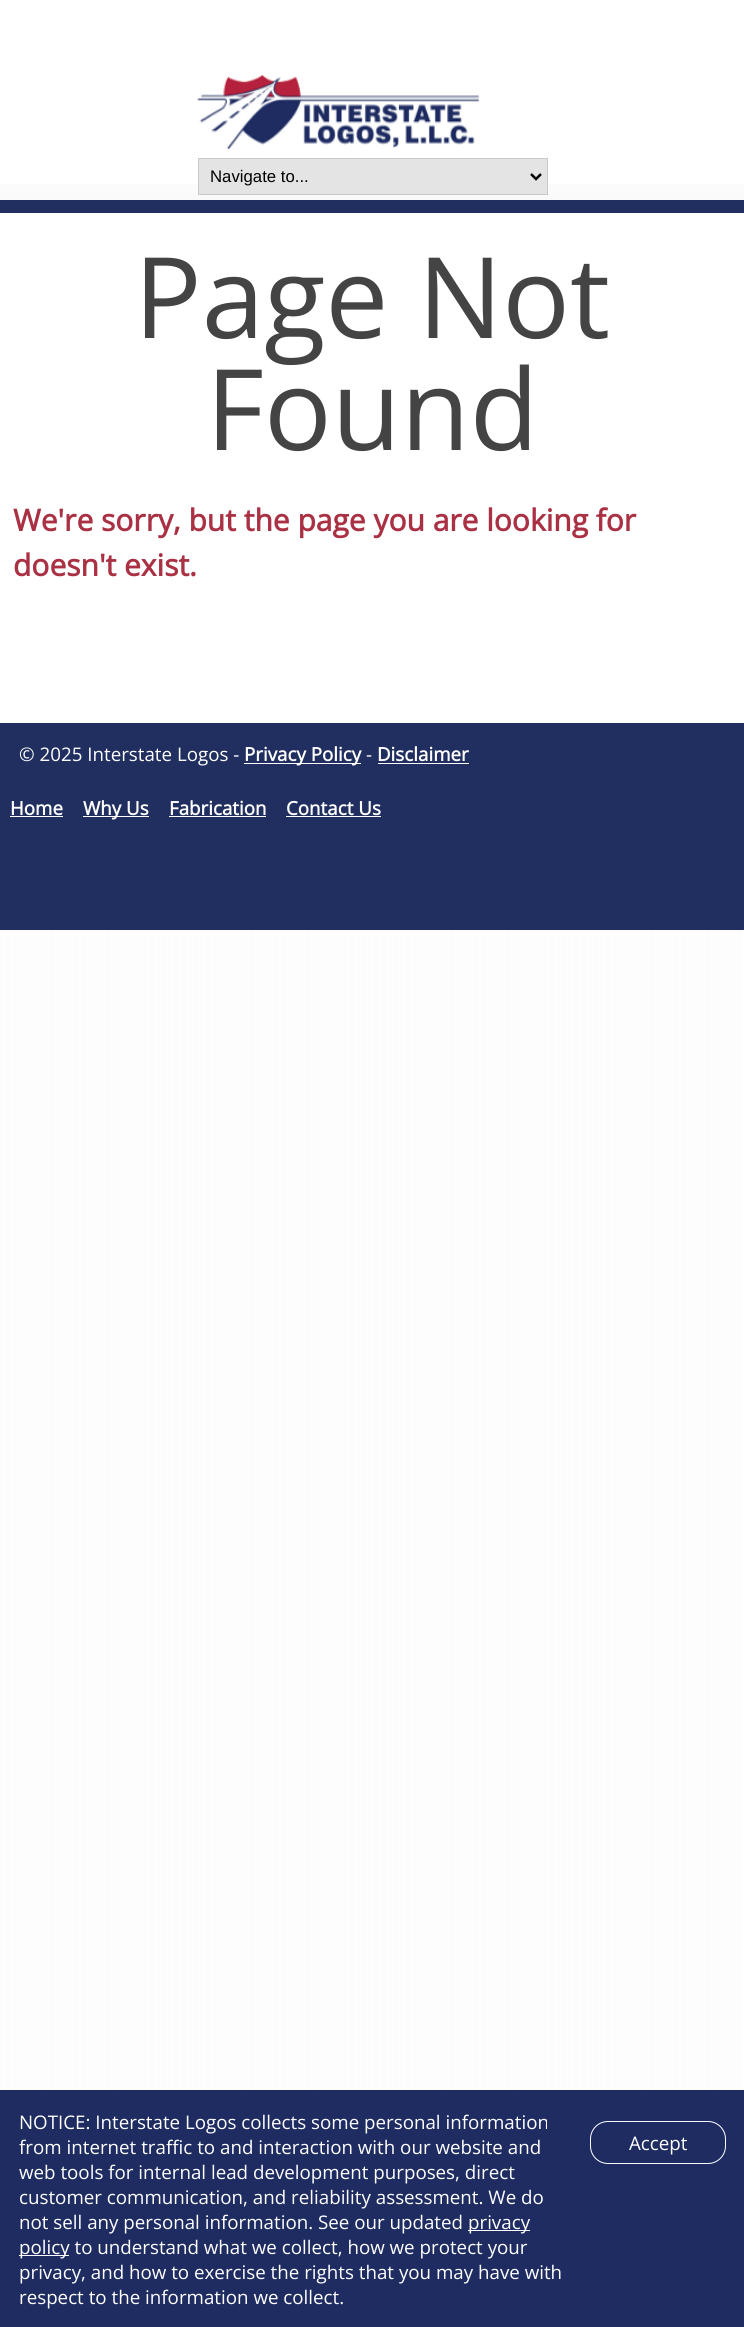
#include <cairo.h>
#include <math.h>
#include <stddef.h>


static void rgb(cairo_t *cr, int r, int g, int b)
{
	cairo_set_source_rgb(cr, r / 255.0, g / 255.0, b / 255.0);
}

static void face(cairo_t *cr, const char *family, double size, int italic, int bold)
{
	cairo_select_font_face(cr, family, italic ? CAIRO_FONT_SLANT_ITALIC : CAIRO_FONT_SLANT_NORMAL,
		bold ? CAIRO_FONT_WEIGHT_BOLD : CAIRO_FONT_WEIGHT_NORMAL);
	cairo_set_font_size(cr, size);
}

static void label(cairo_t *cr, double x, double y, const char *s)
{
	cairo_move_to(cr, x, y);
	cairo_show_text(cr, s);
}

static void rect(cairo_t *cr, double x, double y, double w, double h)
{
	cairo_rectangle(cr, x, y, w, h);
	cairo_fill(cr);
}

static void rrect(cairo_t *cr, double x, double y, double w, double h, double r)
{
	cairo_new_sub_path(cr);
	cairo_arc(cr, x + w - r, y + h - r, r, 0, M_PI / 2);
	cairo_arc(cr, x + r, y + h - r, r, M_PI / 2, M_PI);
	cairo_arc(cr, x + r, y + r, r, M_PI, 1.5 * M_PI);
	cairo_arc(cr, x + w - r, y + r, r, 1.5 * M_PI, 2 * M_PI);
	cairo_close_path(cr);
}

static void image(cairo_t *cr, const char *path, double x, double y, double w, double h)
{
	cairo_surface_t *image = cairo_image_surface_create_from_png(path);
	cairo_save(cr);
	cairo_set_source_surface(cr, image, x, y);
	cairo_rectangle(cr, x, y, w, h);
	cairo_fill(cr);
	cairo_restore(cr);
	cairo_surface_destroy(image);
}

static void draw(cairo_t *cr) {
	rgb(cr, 255, 255, 255);
	cairo_paint(cr);
	image(cr, "image0.png", 0, 930, 741, 1160);
	image(cr, "image1.png", 0, 184, 744, 16);
	image(cr, "image2.png", 197, 75, 282, 74);
	rgb(cr, 228, 228, 228);
	cairo_rectangle(cr, 198.5, 158.5, 349, 36);
	cairo_fill_preserve(cr);
	rgb(cr, 200, 200, 200);
	cairo_set_line_width(cr, 1);
	cairo_stroke(cr);
	cairo_new_path(cr);
	cairo_move_to(cr, 531, 174);
	cairo_line_to(cr, 536, 179);
	cairo_line_to(cr, 541, 174);
	rgb(cr, 0, 0, 0);
	cairo_set_line_width(cr, 2.5);
	cairo_stroke(cr);
	face(cr, "Liberation Sans", 16.75, 0, 0);
	label(cr, 210, 182, "Navigate to...");
	rgb(cr, 32, 47, 95);
	rect(cr, 0, 200, 744, 13);
	face(cr, "Open Sans", 112.5, 0, 0);
	rgb(cr, 68, 68, 68);
	label(cr, 134, 338, "Page Not");
	label(cr, 206, 450, "Found");
	face(cr, "Open Sans", 30, 0, 1);
	rgb(cr, 170, 48, 67);
	label(cr, 13, 531, "We're sorry, but the page you are looking for");
	label(cr, 13, 576, "doesn't exist.");
	rgb(cr, 32, 47, 95);
	rect(cr, 0, 723, 744, 207);
	face(cr, "Open Sans", 18.75, 0, 0);
	rgb(cr, 255, 255, 255);
	label(cr, 19, 761, "© 2025 Interstate Logos -");
	rect(cr, 244, 763, 117, 1);
	face(cr, "Open Sans", 18.75, 0, 1);
	label(cr, 244, 761, "Privacy Policy");
	face(cr, "Open Sans", 18.75, 0, 0);
	label(cr, 366, 761, "-");
	face(cr, "Open Sans", 18.75, 0, 1);
	label(cr, 377, 761, "Disclaimer");
	rect(cr, 378, 763, 91, 1);
	label(cr, 10, 815, "Home");
	rect(cr, 10, 816, 53, 1);
	rect(cr, 83, 816, 66, 1);
	label(cr, 83, 815, "Why Us");
	label(cr, 169, 815, "Fabrication");
	rect(cr, 169, 816, 97, 1);
	label(cr, 286, 815, "Contact Us");
	rect(cr, 286, 816, 95, 1);
	rgb(cr, 30, 44, 98);
	rect(cr, 0, 2090, 744, 237);
	face(cr, "Open Sans", 18.75, 0, 0);
	rgb(cr, 255, 255, 255);
	label(cr, 19, 2129, "NOTICE: Interstate Logos collects some personal information");
	label(cr, 19, 2154, "from internet traffic to and interaction with our website and");
	label(cr, 19, 2179, "web tools for internal lead development purposes, direct");
	label(cr, 19, 2204, "customer communication, and reliability assessment. We do");
	label(cr, 19, 2229, "not sell any personal information. See our updated");
	rect(cr, 468, 2230, 62, 1);
	label(cr, 468, 2229, "privacy");
	rect(cr, 19, 2255, 50, 1);
	label(cr, 19, 2254, "policy to understand what we collect, how we protect your");
	label(cr, 19, 2279, "privacy, and how to exercise the rights that you may have with");
	label(cr, 19, 2304, "respect to the information we collect.");
	rrect(cr, 590.5, 2121.5, 135, 42, 17.5);
	cairo_set_line_width(cr, 1);
	cairo_stroke(cr);
	label(cr, 629, 2150, "Accept");
}

int main(void) {
	cairo_surface_t *surface = cairo_image_surface_create(CAIRO_FORMAT_RGB24, 744, 2327);
	cairo_t *cr = cairo_create(surface);
	cairo_font_options_t *options = cairo_font_options_create();
	cairo_font_options_set_hint_metrics(options, CAIRO_HINT_METRICS_OFF);
	cairo_font_options_set_hint_style(options, CAIRO_HINT_STYLE_NONE);
	cairo_set_font_options(cr, options);
	cairo_set_miter_limit(cr, 4);
	draw(cr);
	cairo_surface_write_to_png(surface, "render.png");
	cairo_font_options_destroy(options);
	cairo_destroy(cr);
	cairo_surface_destroy(surface);
	return 0;
}
